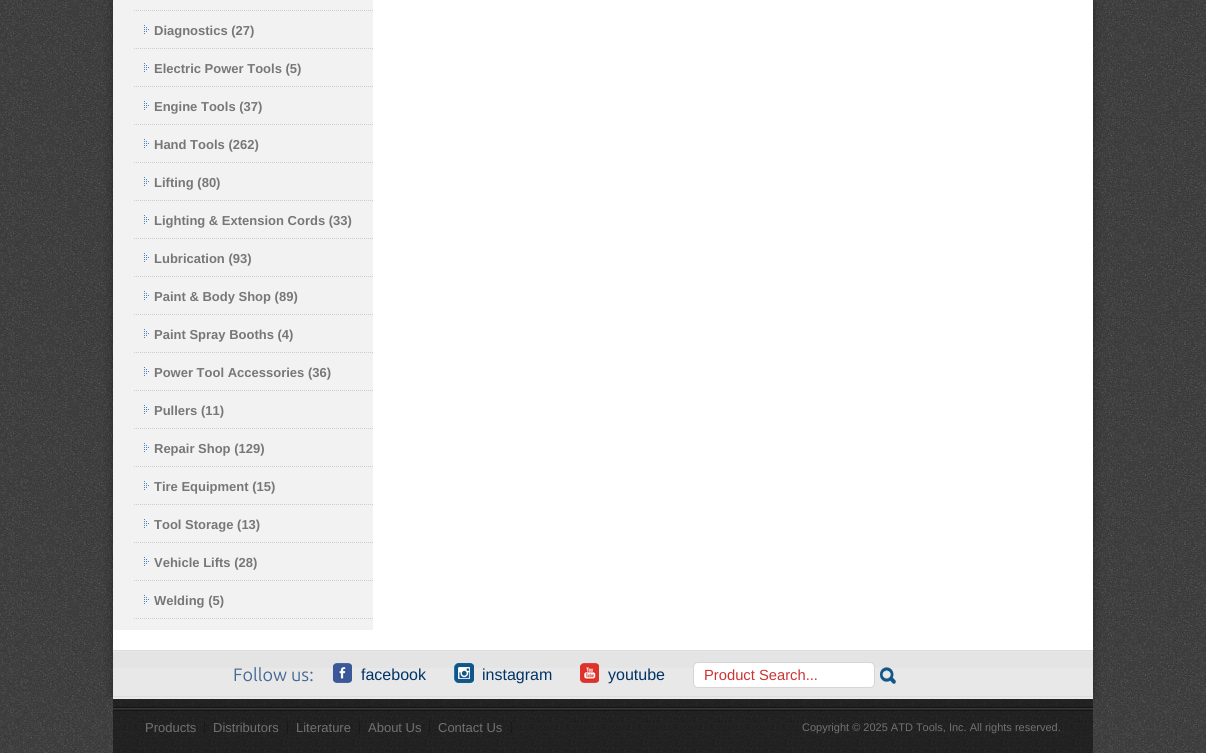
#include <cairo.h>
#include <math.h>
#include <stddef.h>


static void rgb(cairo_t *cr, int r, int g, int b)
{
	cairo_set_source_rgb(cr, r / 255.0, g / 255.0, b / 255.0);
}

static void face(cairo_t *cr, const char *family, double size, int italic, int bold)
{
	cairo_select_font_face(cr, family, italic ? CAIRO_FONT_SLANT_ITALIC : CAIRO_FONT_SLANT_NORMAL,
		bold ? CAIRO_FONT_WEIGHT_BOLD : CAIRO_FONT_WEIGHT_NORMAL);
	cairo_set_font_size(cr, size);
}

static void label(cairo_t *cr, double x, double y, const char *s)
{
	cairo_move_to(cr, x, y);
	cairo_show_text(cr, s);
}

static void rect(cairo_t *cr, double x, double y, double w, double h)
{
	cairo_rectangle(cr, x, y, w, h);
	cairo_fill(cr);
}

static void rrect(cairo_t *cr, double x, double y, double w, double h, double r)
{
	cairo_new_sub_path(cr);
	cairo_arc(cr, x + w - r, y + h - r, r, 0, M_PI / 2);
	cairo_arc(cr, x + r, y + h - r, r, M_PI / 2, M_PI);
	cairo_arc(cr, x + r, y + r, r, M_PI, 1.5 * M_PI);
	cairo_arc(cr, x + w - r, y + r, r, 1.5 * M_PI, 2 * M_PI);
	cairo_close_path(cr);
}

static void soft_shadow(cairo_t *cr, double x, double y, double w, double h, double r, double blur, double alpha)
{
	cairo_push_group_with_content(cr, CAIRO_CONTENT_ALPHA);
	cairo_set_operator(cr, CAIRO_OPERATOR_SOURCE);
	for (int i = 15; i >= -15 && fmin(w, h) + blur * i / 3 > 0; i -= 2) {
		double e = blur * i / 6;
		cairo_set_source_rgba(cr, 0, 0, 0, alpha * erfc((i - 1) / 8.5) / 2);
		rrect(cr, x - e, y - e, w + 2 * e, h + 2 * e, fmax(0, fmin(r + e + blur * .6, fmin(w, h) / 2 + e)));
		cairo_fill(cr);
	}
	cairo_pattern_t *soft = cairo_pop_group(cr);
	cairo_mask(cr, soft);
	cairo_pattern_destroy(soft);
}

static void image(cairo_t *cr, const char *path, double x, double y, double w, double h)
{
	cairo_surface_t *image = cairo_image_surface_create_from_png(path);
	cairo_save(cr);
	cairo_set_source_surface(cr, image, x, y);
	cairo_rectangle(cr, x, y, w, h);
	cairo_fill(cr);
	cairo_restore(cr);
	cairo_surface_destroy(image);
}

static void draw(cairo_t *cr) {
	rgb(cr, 255, 255, 255);
	cairo_paint(cr);
	image(cr, "image0.png", 0, 0, 1206, 699);
	rgb(cr, 0, 0, 0);
	soft_shadow(cr, 113, -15, 980, 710, 0, 5, 0.4);
	rgb(cr, 255, 255, 255);
	rect(cr, 113, 0, 980, 650);
	rgb(cr, 242, 242, 242);
	rect(cr, 113, 0, 260, 630);
	image(cr, "image1.png", 134, 10, 239, 1);
	image(cr, "image1.png", 134, 48, 239, 1);
	image(cr, "image2.png", 144, 25, 5, 9);
	face(cr, "Liberation Sans", 13, 0, 1);
	rgb(cr, 119, 119, 119);
	label(cr, 154, 35, "Diagnostics (27)");
	image(cr, "image1.png", 134, 86, 239, 1);
	image(cr, "image2.png", 144, 63, 5, 9);
	label(cr, 154, 73, "Electric Power Tools (5)");
	image(cr, "image1.png", 134, 124, 239, 1);
	image(cr, "image2.png", 144, 101, 5, 9);
	label(cr, 154, 111, "Engine Tools (37)");
	image(cr, "image1.png", 134, 162, 239, 1);
	image(cr, "image2.png", 144, 139, 5, 9);
	label(cr, 154, 149, "Hand Tools (262)");
	image(cr, "image1.png", 134, 200, 239, 1);
	image(cr, "image2.png", 144, 177, 5, 9);
	label(cr, 154, 187, "Lifting (80)");
	image(cr, "image1.png", 134, 238, 239, 1);
	image(cr, "image2.png", 144, 215, 5, 9);
	label(cr, 154, 225, "Lighting & Extension Cords (33)");
	image(cr, "image1.png", 134, 276, 239, 1);
	image(cr, "image2.png", 144, 253, 5, 9);
	label(cr, 154, 263, "Lubrication (93)");
	image(cr, "image1.png", 134, 314, 239, 1);
	image(cr, "image2.png", 144, 291, 5, 9);
	label(cr, 154, 301, "Paint & Body Shop (89)");
	image(cr, "image1.png", 134, 352, 239, 1);
	image(cr, "image2.png", 144, 329, 5, 9);
	label(cr, 154, 339, "Paint Spray Booths (4)");
	image(cr, "image1.png", 134, 390, 239, 1);
	image(cr, "image2.png", 144, 367, 5, 9);
	label(cr, 154, 377, "Power Tool Accessories (36)");
	image(cr, "image1.png", 134, 428, 239, 1);
	image(cr, "image2.png", 144, 405, 5, 9);
	label(cr, 154, 415, "Pullers (11)");
	image(cr, "image1.png", 134, 466, 239, 1);
	image(cr, "image2.png", 144, 443, 5, 9);
	label(cr, 154, 453, "Repair Shop (129)");
	image(cr, "image1.png", 134, 504, 239, 1);
	image(cr, "image2.png", 144, 481, 5, 9);
	label(cr, 154, 491, "Tire Equipment (15)");
	image(cr, "image1.png", 134, 542, 239, 1);
	image(cr, "image2.png", 144, 519, 5, 9);
	label(cr, 154, 529, "Tool Storage (13)");
	image(cr, "image1.png", 134, 580, 239, 1);
	image(cr, "image2.png", 144, 557, 5, 9);
	label(cr, 154, 567, "Vehicle Lifts (28)");
	image(cr, "image1.png", 134, 618, 239, 1);
	image(cr, "image2.png", 144, 595, 5, 9);
	label(cr, 154, 605, "Welding (5)");
	rgb(cr, 233, 233, 233);
	rect(cr, 113, 651, 980, 48);
	image(cr, "image3.png", 113, 650, 980, 47);
	face(cr, "Ubuntu", 18, 0, 0);
	rgb(cr, 71, 105, 148);
	label(cr, 233, 681, "Follow us:");
	image(cr, "image4.png", 333, 663, 19, 20);
	face(cr, "Liberation Sans", 16, 0, 0);
	rgb(cr, 0, 51, 102);
	label(cr, 361, 680, "facebook");
	image(cr, "image5.png", 454, 663, 20, 20);
	label(cr, 482, 680, "instagram");
	image(cr, "image6.png", 580, 663, 19, 20);
	label(cr, 608, 680, "youtube");
	rgb(cr, 255, 255, 255);
	rrect(cr, 693.5, 662.5, 181, 25, 4.5);
	cairo_fill_preserve(cr);
	rgb(cr, 214, 214, 214);
	cairo_set_line_width(cr, 1);
	cairo_stroke(cr);
	face(cr, "Liberation Sans", 14.75, 0, 0);
	rgb(cr, 204, 51, 51);
	label(cr, 704, 680, "Product Search...");
	image(cr, "image7.png", 880, 667, 16, 17);
	image(cr, "image8.png", 0, 699, 1206, 54);
	image(cr, "image9.png", 113, 699, 980, 54);
	image(cr, "image10.png", 113, 707, 980, 4);
	rgb(cr, 24, 24, 24);
	rect(cr, 204, 722, 1, 11);
	face(cr, "Liberation Sans", 13, 0, 0);
	rgb(cr, 113, 113, 113);
	label(cr, 145, 732, "Products");
	rgb(cr, 24, 24, 24);
	rect(cr, 287, 722, 1, 11);
	rgb(cr, 113, 113, 113);
	label(cr, 213, 732, "Distributors");
	rgb(cr, 24, 24, 24);
	rect(cr, 359, 722, 1, 11);
	rgb(cr, 113, 113, 113);
	label(cr, 296, 732, "Literature");
	rgb(cr, 24, 24, 24);
	rect(cr, 429, 722, 1, 11);
	rgb(cr, 113, 113, 113);
	label(cr, 368, 732, "About Us");
	rgb(cr, 24, 24, 24);
	rect(cr, 511, 722, 1, 11);
	rgb(cr, 113, 113, 113);
	label(cr, 438, 732, "Contact Us");
	face(cr, "Liberation Sans", 11, 0, 0);
	label(cr, 802, 731, "Copyright © 2025 ATD Tools, Inc. All rights reserved.");
}

int main(void) {
	cairo_surface_t *surface = cairo_image_surface_create(CAIRO_FORMAT_RGB24, 1206, 753);
	cairo_t *cr = cairo_create(surface);
	cairo_font_options_t *options = cairo_font_options_create();
	cairo_font_options_set_hint_metrics(options, CAIRO_HINT_METRICS_OFF);
	cairo_font_options_set_hint_style(options, CAIRO_HINT_STYLE_NONE);
	cairo_set_font_options(cr, options);
	cairo_set_miter_limit(cr, 4);
	draw(cr);
	cairo_surface_write_to_png(surface, "render.png");
	cairo_font_options_destroy(options);
	cairo_destroy(cr);
	cairo_surface_destroy(surface);
	return 0;
}
